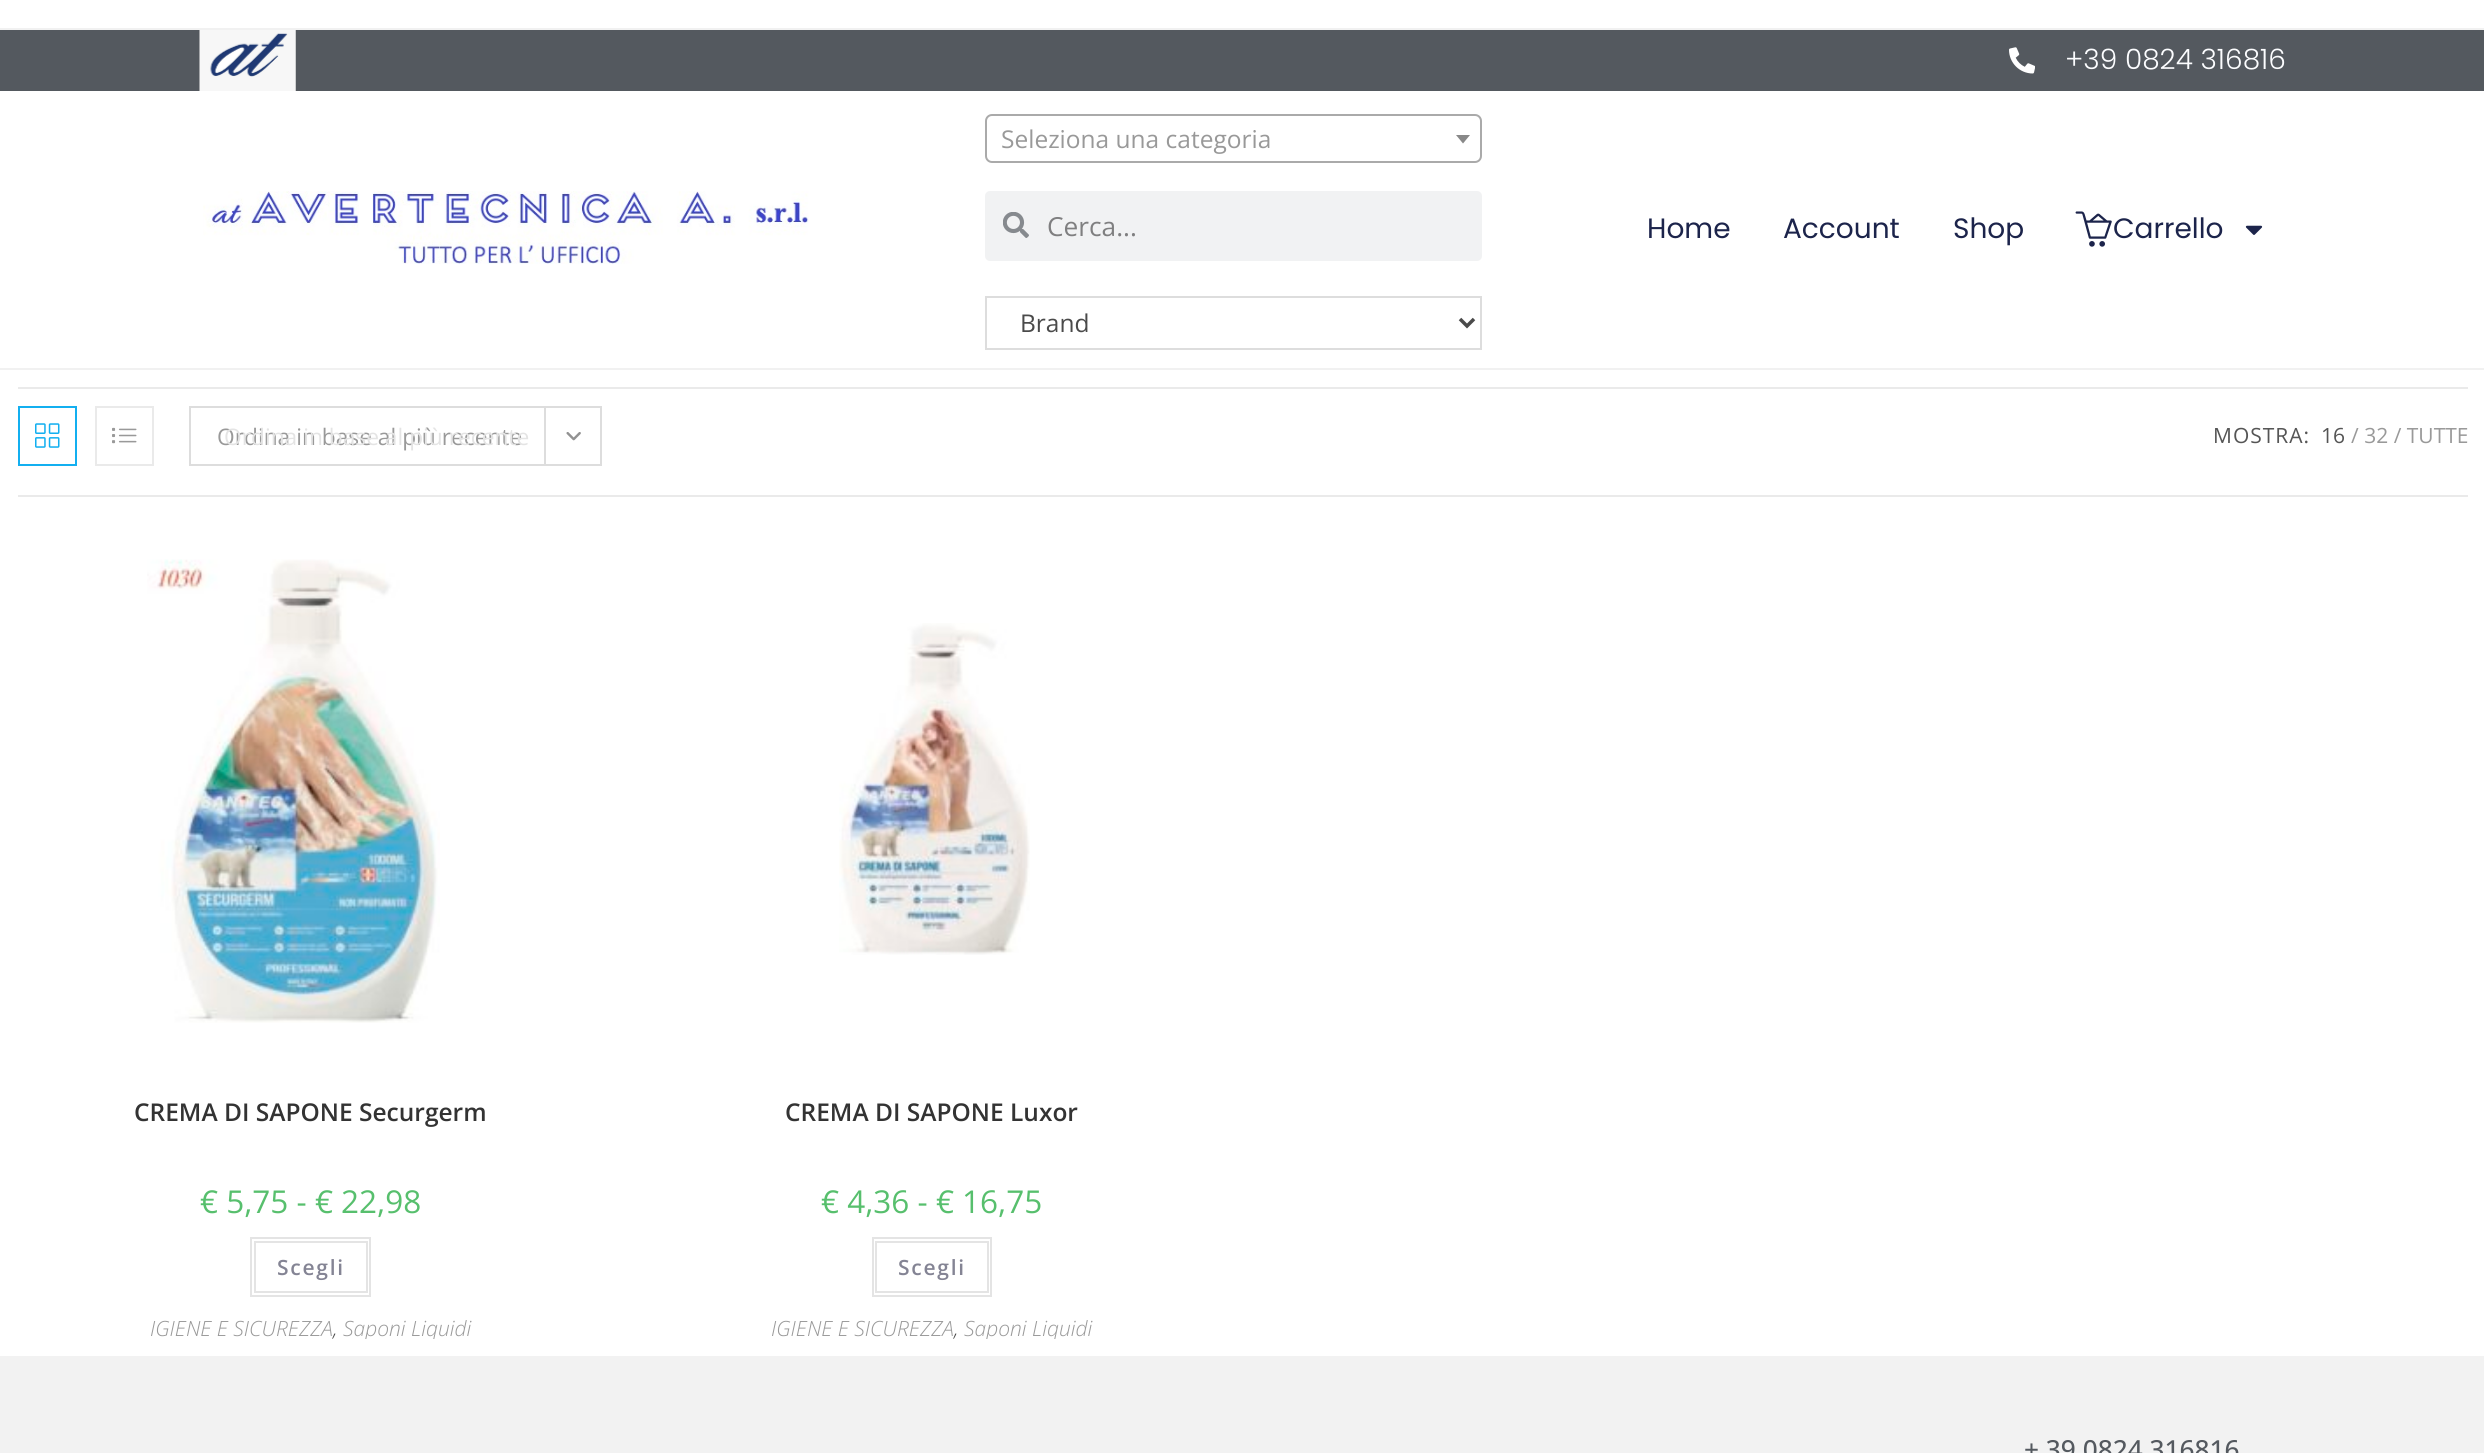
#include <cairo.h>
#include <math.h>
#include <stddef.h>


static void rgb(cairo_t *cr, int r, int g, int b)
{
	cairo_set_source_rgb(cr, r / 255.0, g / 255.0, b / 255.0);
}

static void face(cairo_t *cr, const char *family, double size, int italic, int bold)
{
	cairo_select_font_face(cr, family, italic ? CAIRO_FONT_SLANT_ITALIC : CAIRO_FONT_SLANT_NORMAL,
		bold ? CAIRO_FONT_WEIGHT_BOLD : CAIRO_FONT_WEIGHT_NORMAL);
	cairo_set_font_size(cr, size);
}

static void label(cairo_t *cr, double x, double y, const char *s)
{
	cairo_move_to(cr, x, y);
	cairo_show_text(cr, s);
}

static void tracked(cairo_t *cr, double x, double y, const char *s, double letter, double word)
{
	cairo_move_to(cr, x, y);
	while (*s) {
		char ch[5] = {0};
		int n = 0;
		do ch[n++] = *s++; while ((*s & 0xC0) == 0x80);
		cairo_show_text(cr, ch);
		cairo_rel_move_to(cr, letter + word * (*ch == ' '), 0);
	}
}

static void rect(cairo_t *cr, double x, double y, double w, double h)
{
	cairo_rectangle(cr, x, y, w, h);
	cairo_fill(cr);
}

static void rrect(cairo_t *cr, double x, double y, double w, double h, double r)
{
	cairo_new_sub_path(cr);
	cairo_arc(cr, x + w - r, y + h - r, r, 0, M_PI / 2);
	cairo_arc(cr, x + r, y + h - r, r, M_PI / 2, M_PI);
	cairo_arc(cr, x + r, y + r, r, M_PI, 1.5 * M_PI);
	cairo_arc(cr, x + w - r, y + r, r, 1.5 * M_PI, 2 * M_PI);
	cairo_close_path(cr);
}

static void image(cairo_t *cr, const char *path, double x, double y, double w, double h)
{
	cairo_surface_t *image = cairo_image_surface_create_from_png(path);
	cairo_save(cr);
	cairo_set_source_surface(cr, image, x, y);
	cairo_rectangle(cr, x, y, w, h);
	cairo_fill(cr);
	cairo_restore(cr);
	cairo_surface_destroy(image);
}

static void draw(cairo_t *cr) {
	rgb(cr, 255, 255, 255);
	cairo_paint(cr);
	rgb(cr, 241, 241, 241);
	rect(cr, 0, 28, 2484, 2);
	rect(cr, 0, 368, 2484, 2);
	rgb(cr, 84, 89, 95);
	rect(cr, 0, 30, 2484, 61);
	image(cr, "image0.png", 199, 30, 97, 61);
	image(cr, "image1.png", 2009, 47, 26, 27);
	face(cr, "Poppins Light", 28, 0, 0);
	rgb(cr, 252, 253, 255);
	label(cr, 2065, 69, "+39 0824 316816");
	image(cr, "image2.png", 203, 191, 606, 73);
	rrect(cr, 986, 115, 495, 47, 6);
	rgb(cr, 170, 170, 170);
	cairo_stroke(cr);
	face(cr, "Open Sans", 24.5, 0, 0);
	rgb(cr, 153, 153, 153);
	label(cr, 1001, 148, "Seleziona una categoria");
	rgb(cr, 136, 136, 136);
	cairo_new_path(cr);
	cairo_move_to(cr, 1456, 135);
	cairo_line_to(cr, 1470, 135);
	cairo_line_to(cr, 1463, 143.5);
	cairo_close_path(cr);
	cairo_fill(cr);
	rgb(cr, 241, 242, 243);
	rrect(cr, 985, 191, 497, 70, 5);
	cairo_fill(cr);
	image(cr, "image3.png", 1003, 212, 26, 26);
	face(cr, "Open Sans", 26.25, 0, 0);
	rgb(cr, 127, 127, 128);
	label(cr, 1047, 236, "Cerca...");
	cairo_rectangle(cr, 986, 297, 495, 52);
	rgb(cr, 221, 221, 221);
	cairo_stroke(cr);
	cairo_new_path(cr);
	cairo_move_to(cr, 1460, 319);
	cairo_line_to(cr, 1467, 326);
	cairo_line_to(cr, 1474, 319);
	rgb(cr, 74, 74, 74);
	cairo_set_line_width(cr, 3.5);
	cairo_stroke(cr);
	face(cr, "Open Sans", 24.5, 0, 0);
	label(cr, 1020, 332, "Brand");
	face(cr, "Poppins", 28, 0, 0);
	rgb(cr, 28, 36, 75);
	label(cr, 1647, 238, "Home");
	label(cr, 1783, 238, "Account");
	label(cr, 1953, 238, "Shop");
	image(cr, "image4.png", 2075, 211, 37, 36);
	label(cr, 2113, 238, "Carrello");
	image(cr, "image5.png", 2245, 225, 18, 10);
	rgb(cr, 234, 234, 234);
	rect(cr, 18, 387, 2450, 2);
	rect(cr, 18, 495, 2450, 2);
	cairo_rectangle(cr, 19, 407, 57, 58);
	rgb(cr, 19, 175, 240);
	cairo_set_line_width(cr, 2);
	cairo_stroke(cr);
	image(cr, "image6.png", 35, 423, 25, 25);
	cairo_rectangle(cr, 96, 407, 57, 58);
	rgb(cr, 234, 234, 234);
	cairo_stroke(cr);
	image(cr, "image7.png", 112, 427, 25, 17);
	cairo_rectangle(cr, 190, 407, 411, 58);
	rgb(cr, 221, 221, 221);
	cairo_stroke(cr);
	face(cr, "Open Sans", 22.75, 0, 0);
	rgb(cr, 153, 153, 153);
	label(cr, 217, 445, "Ordina in base al più recente");
	rgb(cr, 221, 221, 221);
	rect(cr, 544, 408, 2, 56);
	image(cr, "image8.png", 566, 432, 15, 9);
	rgb(cr, 228, 228, 228);
	label(cr, 224, 445, "Ordina in base al più recente");
	face(cr, "Open Sans", 21, 0, 0);
	rgb(cr, 85, 85, 85);
	tracked(cr, 2213, 443, "MOSTRA:", 1, 0);
	label(cr, 2321, 443, "16");
	rgb(cr, 153, 153, 153);
	label(cr, 2351, 443, "/ 32 / TUTTE");
	image(cr, "image9.png", 147, 559, 293, 464);
	face(cr, "Open Sans SemiBold", 24.5, 0, 0);
	rgb(cr, 51, 51, 51);
	label(cr, 134, 1121, "CREMA DI SAPONE Securgerm");
	face(cr, "Open Sans", 31.5, 0, 0);
	rgb(cr, 87, 191, 109);
	label(cr, 200, 1213, "€ 5,75 - € 22,98");
	cairo_rectangle(cr, 251, 1238, 119, 58);
	rgb(cr, 228, 228, 228);
	cairo_stroke(cr);
	cairo_rectangle(cr, 255, 1242, 112, 50);
	cairo_stroke(cr);
	face(cr, "Open Sans SemiBold", 21, 0, 0);
	rgb(cr, 132, 132, 148);
	tracked(cr, 277, 1275, "Scegli", 1.75, 0);
	face(cr, "Open Sans Light", 21, 1, 0);
	rgb(cr, 153, 153, 153);
	label(cr, 150, 1336, "IGIENE E SICUREZZA");
	rgb(cr, 74, 74, 74);
	label(cr, 333, 1336, ",");
	cairo_save(cr);
	cairo_rectangle(cr, 18, 532, 586, 807);
	cairo_clip(cr);
	rgb(cr, 153, 153, 153);
	label(cr, 343, 1336, "Saponi Liquidi");
	cairo_restore(cr);
	image(cr, "image10.png", 839, 623, 191, 332);
	face(cr, "Open Sans SemiBold", 24.5, 0, 0);
	rgb(cr, 51, 51, 51);
	label(cr, 785, 1121, "CREMA DI SAPONE Luxor");
	face(cr, "Open Sans", 31.5, 0, 0);
	rgb(cr, 87, 191, 109);
	label(cr, 821, 1213, "€ 4,36 - € 16,75");
	cairo_rectangle(cr, 873, 1238, 118, 58);
	rgb(cr, 228, 228, 228);
	cairo_stroke(cr);
	cairo_rectangle(cr, 876, 1242, 112, 50);
	cairo_stroke(cr);
	face(cr, "Open Sans SemiBold", 21, 0, 0);
	rgb(cr, 132, 132, 148);
	tracked(cr, 898, 1275, "Scegli", 1.75, 0);
	face(cr, "Open Sans Light", 21, 1, 0);
	rgb(cr, 153, 153, 153);
	label(cr, 771, 1336, "IGIENE E SICUREZZA");
	rgb(cr, 74, 74, 74);
	label(cr, 954, 1336, ",");
	cairo_save(cr);
	cairo_rectangle(cr, 639, 532, 586, 807);
	cairo_clip(cr);
	rgb(cr, 153, 153, 153);
	label(cr, 964, 1336, "Saponi Liquidi");
	cairo_restore(cr);
	rgb(cr, 242, 242, 242);
	rect(cr, 0, 1356, 2484, 97);
	face(cr, "Open Sans Medium", 26.25, 0, 0);
	rgb(cr, 84, 89, 95);
	label(cr, 2024, 1459, "+ 39 0824 316816");
}

int main(void) {
	cairo_surface_t *surface = cairo_image_surface_create(CAIRO_FORMAT_RGB24, 2484, 1453);
	cairo_t *cr = cairo_create(surface);
	cairo_font_options_t *options = cairo_font_options_create();
	cairo_font_options_set_hint_metrics(options, CAIRO_HINT_METRICS_OFF);
	cairo_font_options_set_hint_style(options, CAIRO_HINT_STYLE_NONE);
	cairo_set_font_options(cr, options);
	cairo_set_miter_limit(cr, 4);
	draw(cr);
	cairo_surface_write_to_png(surface, "render.png");
	cairo_font_options_destroy(options);
	cairo_destroy(cr);
	cairo_surface_destroy(surface);
	return 0;
}
